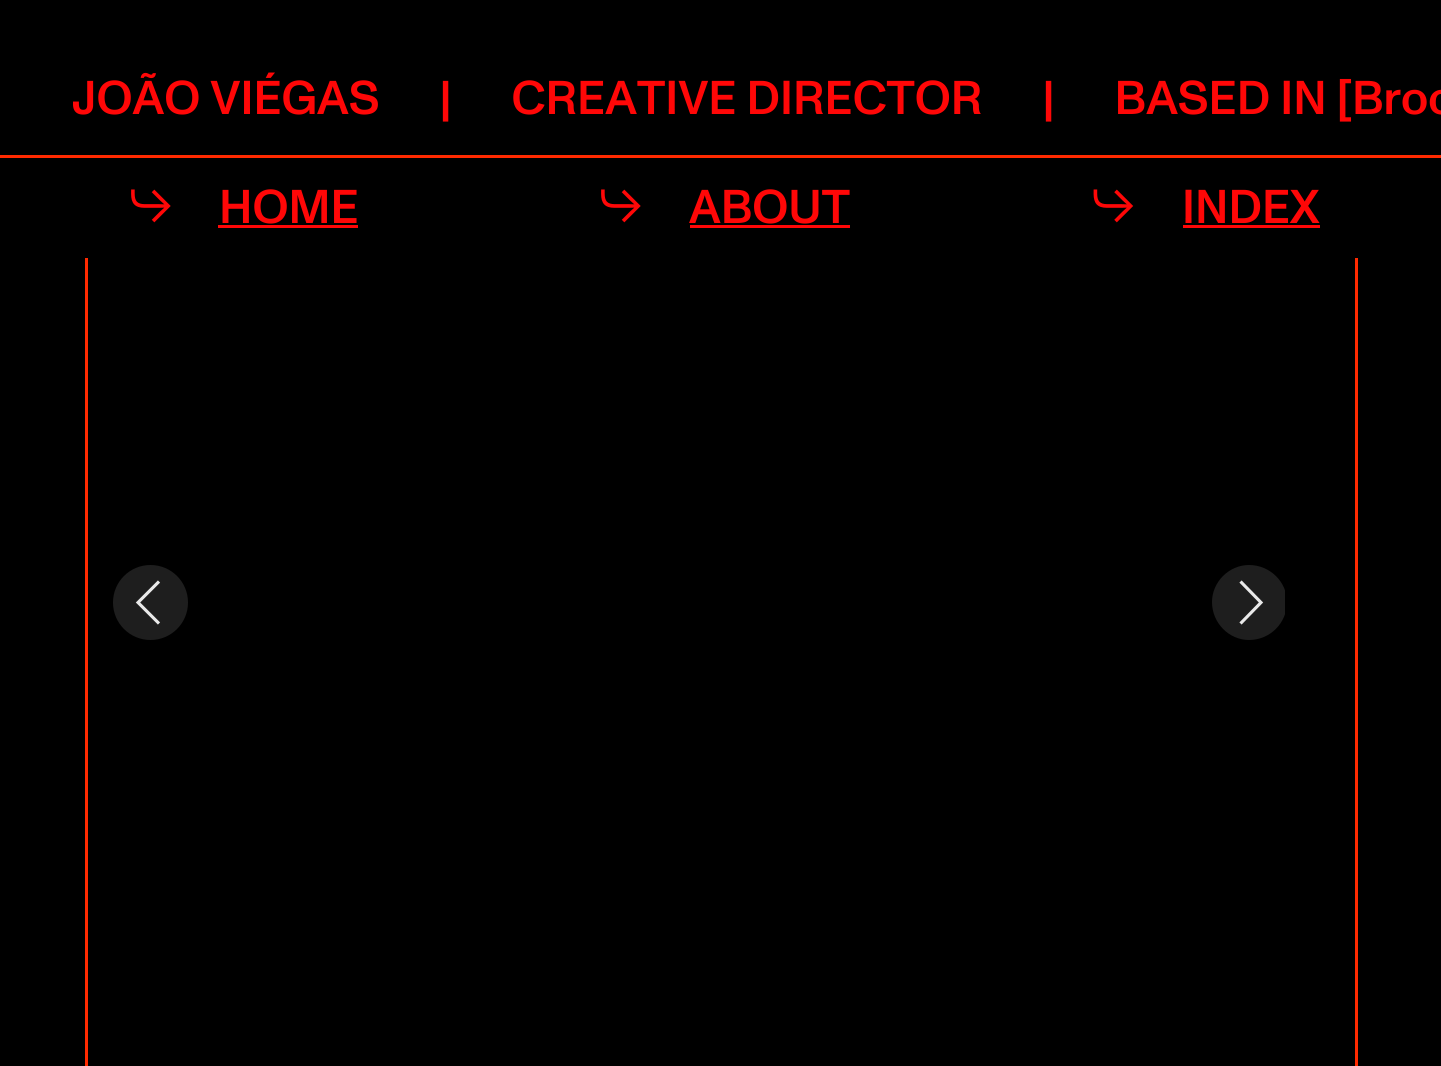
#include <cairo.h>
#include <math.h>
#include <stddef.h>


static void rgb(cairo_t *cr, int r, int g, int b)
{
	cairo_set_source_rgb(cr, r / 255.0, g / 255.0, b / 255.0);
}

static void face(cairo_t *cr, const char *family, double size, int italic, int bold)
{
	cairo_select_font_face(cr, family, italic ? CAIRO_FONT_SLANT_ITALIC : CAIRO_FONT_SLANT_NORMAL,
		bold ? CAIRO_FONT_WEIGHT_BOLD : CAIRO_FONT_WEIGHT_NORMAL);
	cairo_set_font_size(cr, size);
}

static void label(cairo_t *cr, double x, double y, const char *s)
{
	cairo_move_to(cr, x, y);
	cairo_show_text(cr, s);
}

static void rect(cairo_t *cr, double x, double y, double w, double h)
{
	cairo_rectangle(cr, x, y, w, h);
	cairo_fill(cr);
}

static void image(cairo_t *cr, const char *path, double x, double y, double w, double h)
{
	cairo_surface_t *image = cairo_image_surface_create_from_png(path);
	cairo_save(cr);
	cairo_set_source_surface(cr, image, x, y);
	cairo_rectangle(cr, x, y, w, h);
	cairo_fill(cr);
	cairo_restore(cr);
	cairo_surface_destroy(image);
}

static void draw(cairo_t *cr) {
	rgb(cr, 0, 0, 0);
	cairo_paint(cr);
	face(cr, "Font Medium", 47.35, 0, 0);
	rgb(cr, 255, 7, 7);
	label(cr, 72, 114, "JOÃO VIÉGAS      |      CREATIVE DIRECTOR      |      BASED IN [Broo");
	rgb(cr, 255, 42, 0);
	rect(cr, 0, 155, 1441, 3);
	image(cr, "image0.png", 131, 189, 40, 34);
	rgb(cr, 255, 7, 7);
	label(cr, 219, 223, "HOME");
	rect(cr, 218, 225, 140, 3);
	image(cr, "image0.png", 601, 189, 40, 34);
	label(cr, 689, 223, "ABOUT");
	rect(cr, 690, 225, 160, 3);
	image(cr, "image1.png", 1093, 189, 41, 34);
	label(cr, 1182, 223, "INDEX");
	rect(cr, 1183, 225, 137, 3);
	rgb(cr, 255, 42, 0);
	rect(cr, 1355, 258, 3, 808);
	rect(cr, 85, 258, 3, 808);
	rgb(cr, 30, 30, 30);
	cairo_new_path(cr);
	cairo_arc(cr, 150.5, 602.5, 37.5, 0, 2 * M_PI);
	cairo_fill(cr);
	cairo_new_path(cr);
	cairo_move_to(cr, 159, 623.5);
	cairo_line_to(cr, 138, 602.5);
	cairo_line_to(cr, 159, 581.5);
	rgb(cr, 233, 233, 233);
	cairo_set_line_width(cr, 3.1);
	cairo_stroke(cr);
	cairo_save(cr);
	cairo_rectangle(cr, 1210, 565, 75, 75);
	cairo_clip(cr);
	rgb(cr, 30, 30, 30);
	cairo_new_path(cr);
	cairo_move_to(cr, 1249, 565);
	cairo_curve_to(cr, 1229, 565, 1212, 582, 1212, 602);
	cairo_curve_to(cr, 1212, 623, 1229, 640, 1249, 640);
	cairo_curve_to(cr, 1270, 640, 1287, 623, 1287, 602);
	cairo_curve_to(cr, 1287, 582, 1270, 565, 1249, 565);
	cairo_close_path(cr);
	cairo_fill(cr);
	cairo_restore(cr);
	cairo_new_path(cr);
	cairo_move_to(cr, 1240.5, 623.5);
	cairo_line_to(cr, 1261, 602.5);
	cairo_line_to(cr, 1240.5, 581.5);
	cairo_stroke(cr);
}

int main(void) {
	cairo_surface_t *surface = cairo_image_surface_create(CAIRO_FORMAT_RGB24, 1441, 1066);
	cairo_t *cr = cairo_create(surface);
	cairo_font_options_t *options = cairo_font_options_create();
	cairo_font_options_set_hint_metrics(options, CAIRO_HINT_METRICS_OFF);
	cairo_font_options_set_hint_style(options, CAIRO_HINT_STYLE_NONE);
	cairo_set_font_options(cr, options);
	cairo_set_miter_limit(cr, 4);
	draw(cr);
	cairo_surface_write_to_png(surface, "render.png");
	cairo_font_options_destroy(options);
	cairo_destroy(cr);
	cairo_surface_destroy(surface);
	return 0;
}
